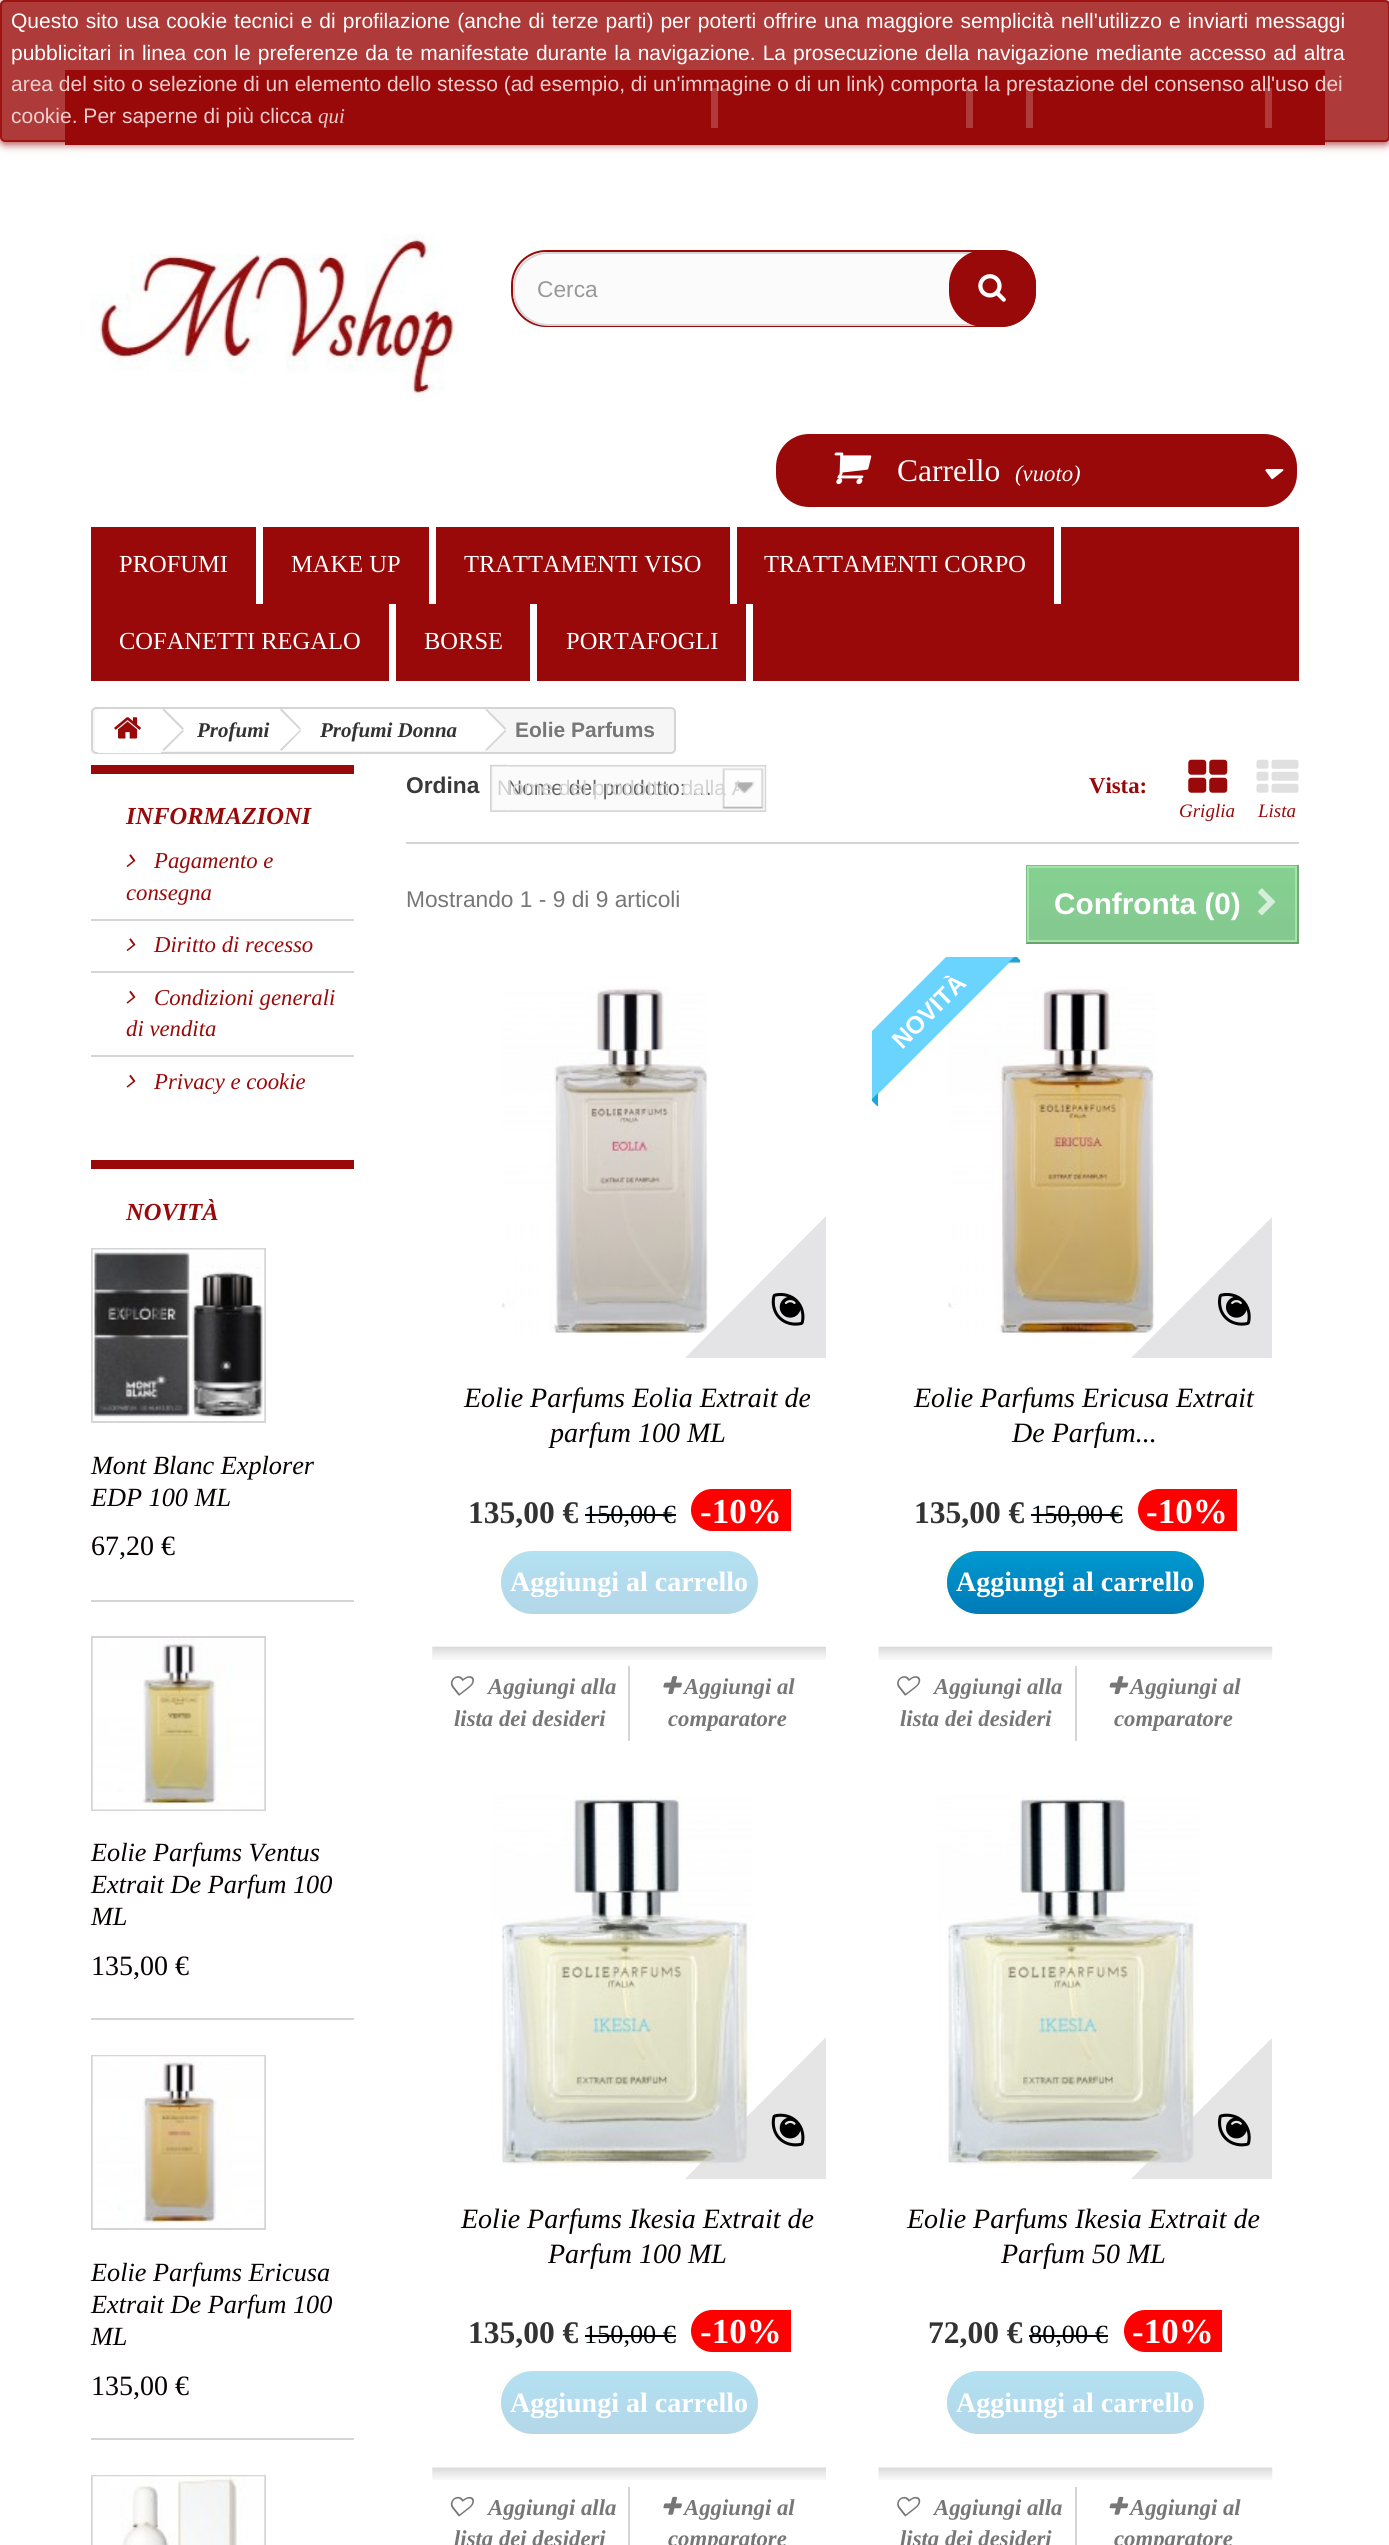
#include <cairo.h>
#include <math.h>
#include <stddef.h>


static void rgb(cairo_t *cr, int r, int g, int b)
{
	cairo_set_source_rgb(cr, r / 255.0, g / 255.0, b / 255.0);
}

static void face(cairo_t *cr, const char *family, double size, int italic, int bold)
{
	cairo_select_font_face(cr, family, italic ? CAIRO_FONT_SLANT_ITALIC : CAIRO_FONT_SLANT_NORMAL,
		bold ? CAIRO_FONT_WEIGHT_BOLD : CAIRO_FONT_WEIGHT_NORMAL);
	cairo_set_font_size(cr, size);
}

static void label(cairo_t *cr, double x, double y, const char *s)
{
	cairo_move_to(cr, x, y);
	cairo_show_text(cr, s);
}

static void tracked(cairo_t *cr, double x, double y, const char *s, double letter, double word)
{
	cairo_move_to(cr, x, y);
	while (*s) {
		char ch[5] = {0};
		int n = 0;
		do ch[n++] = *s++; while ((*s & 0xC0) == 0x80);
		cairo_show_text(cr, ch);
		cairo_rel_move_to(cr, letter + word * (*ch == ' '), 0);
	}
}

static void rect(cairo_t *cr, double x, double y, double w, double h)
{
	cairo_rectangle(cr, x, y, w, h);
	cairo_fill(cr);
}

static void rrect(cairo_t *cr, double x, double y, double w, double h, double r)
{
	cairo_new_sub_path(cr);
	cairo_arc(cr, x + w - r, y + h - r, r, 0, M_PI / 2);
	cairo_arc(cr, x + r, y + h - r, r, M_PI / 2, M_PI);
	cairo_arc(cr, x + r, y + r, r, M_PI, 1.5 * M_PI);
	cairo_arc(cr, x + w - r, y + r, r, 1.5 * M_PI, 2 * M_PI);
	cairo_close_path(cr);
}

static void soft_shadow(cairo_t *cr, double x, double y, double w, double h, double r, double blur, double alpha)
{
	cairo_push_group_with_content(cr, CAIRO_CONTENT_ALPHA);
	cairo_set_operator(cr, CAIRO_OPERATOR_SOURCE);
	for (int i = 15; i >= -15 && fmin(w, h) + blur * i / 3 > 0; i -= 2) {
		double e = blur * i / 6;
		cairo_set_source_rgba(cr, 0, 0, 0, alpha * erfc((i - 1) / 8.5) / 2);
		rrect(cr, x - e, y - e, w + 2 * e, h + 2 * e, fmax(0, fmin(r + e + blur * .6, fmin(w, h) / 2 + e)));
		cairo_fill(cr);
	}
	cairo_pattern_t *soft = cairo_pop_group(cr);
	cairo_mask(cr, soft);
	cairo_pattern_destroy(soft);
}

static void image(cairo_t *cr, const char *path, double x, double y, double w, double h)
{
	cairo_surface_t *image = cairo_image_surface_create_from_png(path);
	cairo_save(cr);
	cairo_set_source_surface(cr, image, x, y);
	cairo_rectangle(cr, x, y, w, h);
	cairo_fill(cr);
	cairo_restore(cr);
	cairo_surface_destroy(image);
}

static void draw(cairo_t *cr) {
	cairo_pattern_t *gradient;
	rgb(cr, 255, 255, 255);
	cairo_paint(cr);
	rgb(cr, 154, 9, 9);
	rect(cr, 65, 70, 1260, 75);
	rgb(cr, 255, 255, 255);
	rect(cr, 966, 88, 7, 40);
	rect(cr, 711, 88, 7, 40);
	rect(cr, 1265, 88, 7, 40);
	rect(cr, 1026, 88, 7, 40);
	cairo_save(cr);
	cairo_set_fill_rule(cr, CAIRO_FILL_RULE_EVEN_ODD);
	cairo_new_path(cr);
	cairo_move_to(cr, 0, 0);
	cairo_line_to(cr, 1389, 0);
	cairo_line_to(cr, 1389, 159);
	cairo_line_to(cr, 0, 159);
	cairo_close_path(cr);
	cairo_move_to(cr, 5, 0);
	cairo_line_to(cr, 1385, 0);
	cairo_curve_to(cr, 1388, 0, 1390, 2, 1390, 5);
	cairo_line_to(cr, 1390, 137);
	cairo_curve_to(cr, 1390, 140, 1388, 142, 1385, 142);
	cairo_line_to(cr, 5, 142);
	cairo_curve_to(cr, 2, 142, 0, 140, 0, 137);
	cairo_line_to(cr, 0, 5);
	cairo_curve_to(cr, 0, 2, 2, 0, 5, 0);
	cairo_close_path(cr);
	cairo_clip(cr);
	rgb(cr, 154, 9, 9);
	soft_shadow(cr, 0, 2, 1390, 142, 5, 4.5, 0.8);
	cairo_restore(cr);
	cairo_set_source_rgba(cr, 0.604, 0.035, 0.035, 0.8);
	rrect(cr, 0, 0, 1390, 142, 5);
	cairo_fill(cr);
	rrect(cr, 1, 1, 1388, 140, 4);
	cairo_stroke(cr);
	face(cr, "Liberation Sans", 21, 0, 0);
	rgb(cr, 255, 255, 255);
	tracked(cr, 11, 28, "Questo sito usa cookie tecnici e di profilazione (anche di terze parti) per poterti offrire una maggiore semplicità nell'utilizzo e inviarti messaggi", 0, 1.2);
	tracked(cr, 11, 60, "pubblicitari in linea con le preferenze da te manifestate durante la navigazione. La prosecuzione della navigazione mediante accesso ad altra", 0, 1.25);
	rgb(cr, 235, 206, 206);
	label(cr, 11, 91, "area del sito o selezione di un elemento dello stesso (ad esempio, di un'immagine o di un link) comporta la prestazione del consenso all'uso dei");
	label(cr, 11, 123, "cookie. Per saperne di più clicca");
	face(cr, "Liberation Serif", 21, 1, 0);
	label(cr, 318, 123, "qui");
	image(cr, "image0.png", 91, 234, 368, 167);
	rrect(cr, 512, 251, 523, 75, 34);
	rgb(cr, 154, 9, 9);
	cairo_stroke(cr);
	rgb(cr, 251, 251, 251);
	rrect(cr, 514, 253, 519, 72, 34);
	cairo_fill_preserve(cr);
	rgb(cr, 214, 212, 212);
	cairo_stroke(cr);
	face(cr, "Liberation Sans", 22.75, 0, 0);
	rgb(cr, 153, 153, 153);
	label(cr, 537, 297, "Cerca");
	rgb(cr, 154, 9, 9);
	rrect(cr, 950, 251, 85, 75, 34);
	cairo_fill_preserve(cr);
	cairo_stroke(cr);
	image(cr, "image1.png", 978, 274, 28, 28);
	rrect(cr, 775, 433, 523, 75, 34);
	cairo_fill_preserve(cr);
	rgb(cr, 255, 255, 255);
	cairo_stroke(cr);
	image(cr, "image2.png", 834, 452, 38, 33);
	face(cr, "Liberation Serif", 31.5, 0, 0);
	label(cr, 897, 481, "Carrello");
	face(cr, "Liberation Serif", 22.75, 1, 0);
	label(cr, 1015, 481, "(vuoto)");
	image(cr, "image3.png", 1265, 469, 19, 11);
	rgb(cr, 154, 9, 9);
	rect(cr, 91, 527, 1208, 154);
	rgb(cr, 255, 255, 255);
	rect(cr, 256, 527, 7, 77);
	face(cr, "Liberation Serif", 24.5, 0, 0);
	label(cr, 119, 572, "PROFUMI");
	rect(cr, 429, 527, 7, 77);
	label(cr, 291, 572, "MAKE UP");
	rect(cr, 730, 527, 7, 77);
	label(cr, 464, 572, "TRATTAMENTI VISO");
	rect(cr, 1054, 527, 7, 77);
	label(cr, 764, 572, "TRATTAMENTI CORPO");
	rect(cr, 389, 604, 7, 77);
	label(cr, 119, 649, "COFANETTI REGALO");
	rect(cr, 530, 604, 7, 77);
	label(cr, 424, 649, "BORSE");
	rect(cr, 746, 604, 7, 77);
	label(cr, 566, 649, "PORTAFOGLI");
	rgb(cr, 246, 246, 246);
	rrect(cr, 92, 708, 583, 45, 4);
	cairo_fill_preserve(cr);
	rgb(cr, 214, 212, 212);
	cairo_stroke(cr);
	rgb(cr, 255, 255, 255);
	cairo_new_path(cr);
	cairo_move_to(cr, 100, 709);
	cairo_line_to(cr, 161, 709);
	cairo_line_to(cr, 161, 753);
	cairo_line_to(cr, 100, 753);
	cairo_curve_to(cr, 97, 753, 95, 751, 95, 748);
	cairo_line_to(cr, 95, 714);
	cairo_curve_to(cr, 95, 711, 97, 709, 100, 709);
	cairo_close_path(cr);
	cairo_fill(cr);
	image(cr, "image4.png", 114, 717, 27, 22);
	rect(cr, 161, 709, 121, 42);
	rgb(cr, 214, 212, 212);
	cairo_new_path(cr);
	cairo_move_to(cr, 164, 708.5);
	cairo_line_to(cr, 184, 728.5);
	cairo_line_to(cr, 182.5, 730);
	cairo_line_to(cr, 162.5, 710);
	cairo_close_path(cr);
	cairo_move_to(cr, 182.5, 730);
	cairo_line_to(cr, 184, 731);
	cairo_line_to(cr, 164, 751);
	cairo_line_to(cr, 162.5, 749.5);
	cairo_close_path(cr);
	cairo_fill(cr);
	face(cr, "Liberation Serif", 21, 1, 1);
	rgb(cr, 51, 51, 51);
	label(cr, 197, 737, "Profumi");
	rgb(cr, 255, 255, 255);
	cairo_new_path(cr);
	cairo_move_to(cr, 300, 710);
	cairo_line_to(cr, 317, 727);
	cairo_curve_to(cr, 319, 729, 319, 731, 317, 732);
	cairo_line_to(cr, 300, 750);
	cairo_curve_to(cr, 299, 751, 296, 751, 295, 750);
	cairo_line_to(cr, 278, 732);
	cairo_curve_to(cr, 276, 731, 276, 729, 278, 727);
	cairo_line_to(cr, 295, 710);
	cairo_curve_to(cr, 296, 709, 299, 709, 300, 710);
	cairo_close_path(cr);
	cairo_fill(cr);
	rect(cr, 282, 709, 201, 42);
	rgb(cr, 214, 212, 212);
	cairo_new_path(cr);
	cairo_move_to(cr, 281.5, 708.5);
	cairo_line_to(cr, 301, 728.5);
	cairo_line_to(cr, 300, 730);
	cairo_line_to(cr, 280, 710);
	cairo_close_path(cr);
	cairo_move_to(cr, 300, 730);
	cairo_line_to(cr, 301, 731);
	cairo_line_to(cr, 281.5, 751);
	cairo_line_to(cr, 280, 749.5);
	cairo_close_path(cr);
	cairo_fill(cr);
	rgb(cr, 51, 51, 51);
	label(cr, 320, 737, "Profumi Donna");
	rgb(cr, 255, 255, 255);
	cairo_new_path(cr);
	cairo_move_to(cr, 488, 710);
	cairo_line_to(cr, 505, 727);
	cairo_curve_to(cr, 507, 729, 507, 731, 505, 732);
	cairo_line_to(cr, 488, 750);
	cairo_curve_to(cr, 487, 751, 484, 751, 483, 750);
	cairo_line_to(cr, 466, 732);
	cairo_curve_to(cr, 464, 731, 464, 729, 466, 727);
	cairo_line_to(cr, 483, 710);
	cairo_curve_to(cr, 484, 709, 487, 709, 488, 710);
	cairo_close_path(cr);
	cairo_fill(cr);
	rgb(cr, 214, 212, 212);
	cairo_new_path(cr);
	cairo_move_to(cr, 486.5, 708.5);
	cairo_line_to(cr, 506.5, 728.5);
	cairo_line_to(cr, 505, 730);
	cairo_line_to(cr, 485.5, 710);
	cairo_close_path(cr);
	cairo_move_to(cr, 505, 730);
	cairo_line_to(cr, 506.5, 731);
	cairo_line_to(cr, 486.5, 751);
	cairo_line_to(cr, 485.5, 749.5);
	cairo_close_path(cr);
	cairo_fill(cr);
	face(cr, "Liberation Sans", 21, 0, 1);
	rgb(cr, 119, 119, 119);
	label(cr, 515, 737, "Eolie Parfums");
	rgb(cr, 154, 9, 9);
	rect(cr, 91, 765, 263, 9);
	face(cr, "Liberation Serif", 24.5, 1, 1);
	label(cr, 126, 824, "INFORMAZIONI");
	image(cr, "image5.png", 126, 854, 10, 13);
	face(cr, "Liberation Serif", 22.75, 1, 0);
	label(cr, 154, 868, "Pagamento e");
	label(cr, 126, 900, "consegna");
	rgb(cr, 214, 212, 212);
	rect(cr, 91, 919, 263, 2);
	image(cr, "image5.png", 126, 938, 10, 13);
	rgb(cr, 154, 9, 9);
	label(cr, 154, 952, "Diritto di recesso");
	rgb(cr, 214, 212, 212);
	rect(cr, 91, 971, 263, 2);
	image(cr, "image6.png", 126, 990, 10, 14);
	rgb(cr, 154, 9, 9);
	label(cr, 154, 1005, "Condizioni generali");
	label(cr, 126, 1036, "di vendita");
	rgb(cr, 214, 212, 212);
	rect(cr, 91, 1055, 263, 2);
	image(cr, "image6.png", 126, 1074, 10, 14);
	rgb(cr, 154, 9, 9);
	label(cr, 154, 1089, "Privacy e cookie");
	rect(cr, 91, 1160, 263, 9);
	face(cr, "Liberation Serif", 24.5, 1, 1);
	label(cr, 126, 1220, "NOVITÀ");
	rgb(cr, 214, 212, 212);
	rect(cr, 91, 1600, 263, 2);
	cairo_rectangle(cr, 92, 1249, 173, 173);
	cairo_stroke(cr);
	image(cr, "image7.png", 92, 1249, 173, 172);
	face(cr, "Liberation Serif", 26.25, 1, 0);
	rgb(cr, 6, 0, 0);
	label(cr, 91, 1474, "Mont Blanc Explorer");
	label(cr, 91, 1506, "EDP 100 ML");
	face(cr, "Liberation Serif", 28, 0, 0);
	label(cr, 91, 1555, "67,20 €");
	rgb(cr, 214, 212, 212);
	rect(cr, 91, 2018, 263, 2);
	cairo_rectangle(cr, 92, 1637, 173, 173);
	cairo_stroke(cr);
	image(cr, "image8.png", 92, 1638, 173, 172);
	face(cr, "Liberation Serif", 26.25, 1, 0);
	rgb(cr, 6, 0, 0);
	label(cr, 91, 1861, "Eolie Parfums Ventus");
	label(cr, 91, 1893, "Extrait De Parfum 100");
	label(cr, 91, 1925, "ML");
	face(cr, "Liberation Serif", 28, 0, 0);
	label(cr, 91, 1975, "135,00 €");
	rgb(cr, 214, 212, 212);
	rect(cr, 91, 2438, 263, 2);
	cairo_rectangle(cr, 92, 2056, 173, 173);
	cairo_stroke(cr);
	image(cr, "image9.png", 92, 2056, 173, 172);
	face(cr, "Liberation Serif", 26.25, 1, 0);
	rgb(cr, 6, 0, 0);
	label(cr, 91, 2281, "Eolie Parfums Ericusa");
	label(cr, 91, 2313, "Extrait De Parfum 100");
	label(cr, 91, 2345, "ML");
	face(cr, "Liberation Serif", 28, 0, 0);
	label(cr, 91, 2395, "135,00 €");
	cairo_rectangle(cr, 92, 2476, 173, 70);
	rgb(cr, 214, 212, 212);
	cairo_stroke(cr);
	image(cr, "image10.png", 92, 2476, 173, 69);
	rect(cr, 406, 842, 893, 2);
	face(cr, "Liberation Sans", 22.75, 0, 1);
	rgb(cr, 58, 57, 57);
	label(cr, 406, 793, "Ordina");
	image(cr, "image11.png", 490, 764, 18, 48);
	image(cr, "image12.png", 507, 765, 260, 47);
	face(cr, "Liberation Sans", 21, 0, 0);
	rgb(cr, 102, 102, 102);
	label(cr, 507, 795, "Nome del prodotto: …");
	cairo_save(cr);
	cairo_rectangle(cr, 497, 775, 242, 28);
	cairo_clip(cr);
	rgb(cr, 210, 210, 210);
	label(cr, 497, 795, "Nome del prodotto: dalla A");
	cairo_restore(cr);
	face(cr, "Liberation Serif", 22.75, 0, 1);
	rgb(cr, 154, 9, 9);
	label(cr, 1089, 793, "Vista:");
	image(cr, "image13.png", 1188, 759, 40, 34);
	face(cr, "Liberation Serif", 19, 1, 0);
	label(cr, 1179, 817, "Griglia");
	image(cr, "image14.png", 1256, 759, 43, 34);
	label(cr, 1258, 817, "Lista");
	face(cr, "Liberation Sans", 22.75, 0, 0);
	rgb(cr, 119, 119, 119);
	label(cr, 406, 907, "Mostrando 1 - 9 di 9 articoli");
	gradient = cairo_pattern_create_linear(1162, 866, 1162, 942);
	cairo_pattern_add_color_stop_rgba(gradient, 0, 0.522, 0.816, 0.565, 1);
	cairo_pattern_add_color_stop_rgba(gradient, 0.02, 0.518, 0.816, 0.573, 1);
	cairo_pattern_add_color_stop_rgba(gradient, 0.04, 0.518, 0.82, 0.565, 1);
	cairo_pattern_add_color_stop_rgba(gradient, 0.06, 0.522, 0.816, 0.569, 1);
	cairo_pattern_add_color_stop_rgba(gradient, 0.38, 0.518, 0.808, 0.565, 1);
	cairo_pattern_add_color_stop_rgba(gradient, 0.4, 0.522, 0.808, 0.569, 1);
	cairo_pattern_add_color_stop_rgba(gradient, 0.66, 0.525, 0.796, 0.569, 1);
	cairo_pattern_add_color_stop_rgba(gradient, 0.74, 0.518, 0.792, 0.561, 1);
	cairo_pattern_add_color_stop_rgba(gradient, 0.91, 0.518, 0.788, 0.561, 1);
	cairo_pattern_add_color_stop_rgba(gradient, 0.94, 0.518, 0.792, 0.569, 1);
	cairo_pattern_add_color_stop_rgba(gradient, 0.96, 0.522, 0.784, 0.565, 1);
	cairo_pattern_add_color_stop_rgba(gradient, 1, 0.518, 0.788, 0.561, 1);
	cairo_set_source(cr, gradient);
	cairo_pattern_destroy(gradient);
	rect(cr, 1029, 868, 266, 72);
	rgb(cr, 126, 189, 137);
	rect(cr, 1026, 865, 273, 1);
	rgb(cr, 113, 172, 122);
	rect(cr, 1297, 865, 2, 78);
	rgb(cr, 106, 160, 115);
	rect(cr, 1026, 942, 273, 2);
	rgb(cr, 126, 189, 137);
	rect(cr, 1026, 865, 2, 78);
	cairo_rectangle(cr, 1028, 867, 268, 74);
	rgb(cr, 165, 228, 167);
	cairo_stroke(cr);
	face(cr, "Liberation Sans", 29.75, 0, 1);
	rgb(cr, 255, 255, 255);
	label(cr, 1054, 914, "Confronta (0)");
	image(cr, "image15.png", 1258, 888, 18, 28);
	image(cr, "image16.png", 502, 987, 206, 348);
	cairo_save(cr);
	cairo_rectangle(cr, 450, 1087, 376, 271);
	cairo_clip(cr);
	rgb(cr, 228, 228, 230);
	cairo_new_path(cr);
	cairo_move_to(cr, 835, 1207);
	cairo_line_to(cr, 941, 1313);
	cairo_line_to(cr, 780, 1474);
	cairo_line_to(cr, 675, 1368);
	cairo_close_path(cr);
	cairo_fill(cr);
	cairo_restore(cr);
	image(cr, "image17.png", 771, 1292, 34, 34);
	face(cr, "Liberation Serif", 28, 1, 0);
	rgb(cr, 6, 0, 0);
	label(cr, 464, 1407, "Eolie Parfums Eolia Extrait de");
	label(cr, 550, 1442, "parfum 100 ML");
	face(cr, "Liberation Serif", 31.5, 0, 1);
	rgb(cr, 51, 51, 51);
	label(cr, 468, 1523, "135,00 €");
	face(cr, "Liberation Serif", 26.25, 0, 0);
	rgb(cr, 0, 5, 8);
	label(cr, 584, 1523, "150,00 €");
	rect(cr, 585, 1514, 91, 2);
	rgb(cr, 255, 0, 0);
	cairo_new_path(cr);
	cairo_move_to(cr, 712, 1489);
	cairo_line_to(cr, 791, 1489);
	cairo_line_to(cr, 791, 1531);
	cairo_line_to(cr, 712, 1531);
	cairo_curve_to(cr, 700.5, 1531, 691, 1521.5, 691, 1510);
	cairo_curve_to(cr, 691, 1498.5, 700.5, 1489, 712, 1489);
	cairo_close_path(cr);
	cairo_fill(cr);
	face(cr, "Liberation Serif", 35, 0, 1);
	rgb(cr, 255, 255, 255);
	label(cr, 700, 1523, "-10%");
	image(cr, "image18.png", 499, 1550, 261, 43);
	rrect(cr, 500, 1550, 259, 64, 32);
	cairo_stroke(cr);
	gradient = cairo_pattern_create_linear(629, 1551, 629, 1614);
	cairo_pattern_add_color_stop_rgba(gradient, 0, 0.702, 0.882, 0.945, 1);
	cairo_pattern_add_color_stop_rgba(gradient, 1, 0.702, 0.843, 0.914, 1);
	cairo_set_source(cr, gradient);
	cairo_pattern_destroy(gradient);
	rrect(cr, 501, 1551, 257, 63, 31.5);
	cairo_fill(cr);
	face(cr, "Liberation Serif", 28, 0, 1);
	rgb(cr, 255, 255, 255);
	label(cr, 510, 1591, "Aggiungi al carrello");
	image(cr, "image19.png", 432, 1646, 394, 14);
	rgb(cr, 214, 212, 212);
	rect(cr, 628, 1666, 2, 75);
	image(cr, "image20.png", 450, 1676, 24, 20);
	face(cr, "Liberation Serif", 22.75, 1, 1);
	rgb(cr, 119, 119, 119);
	label(cr, 488, 1694, "Aggiungi alla");
	label(cr, 454, 1726, "lista dei desideri");
	image(cr, "image21.png", 663, 1676, 19, 18);
	label(cr, 684, 1694, "Aggiungi al");
	label(cr, 668, 1726, "comparatore");
	image(cr, "image22.png", 948, 987, 208, 348);
	cairo_save(cr);
	cairo_rectangle(cr, 872, 957, 148, 149);
	cairo_clip(cr);
	rgb(cr, 106, 212, 255);
	cairo_new_path(cr);
	cairo_move_to(cr, 830, 1073);
	cairo_line_to(cr, 991, 912);
	cairo_line_to(cr, 1025, 947);
	cairo_line_to(cr, 864, 1108);
	cairo_close_path(cr);
	cairo_fill(cr);
	rgb(cr, 33, 163, 216);
	cairo_new_path(cr);
	cairo_move_to(cr, 1022.5, 962.5);
	cairo_line_to(cr, 1008.5, 962.5);
	cairo_line_to(cr, 1015.5, 955.5);
	cairo_close_path(cr);
	cairo_fill(cr);
	cairo_restore(cr);
	face(cr, "Liberation Sans", 24.5, 0, 1);
	rgb(cr, 255, 255, 255);
	cairo_save(cr);
	cairo_translate(cr, 902, 1050);
	cairo_rotate(cr, -45 * M_PI / 180);
	label(cr, 0, 0, "NOVITÀ");
	cairo_restore(cr);
	cairo_save(cr);
	cairo_rectangle(cr, 872, 957, 148, 149);
	cairo_clip(cr);
	rgb(cr, 33, 163, 216);
	cairo_new_path(cr);
	cairo_move_to(cr, 878, 1093);
	cairo_line_to(cr, 878, 1107);
	cairo_line_to(cr, 871, 1100);
	cairo_close_path(cr);
	cairo_fill(cr);
	cairo_restore(cr);
	cairo_save(cr);
	cairo_rectangle(cr, 896, 1087, 376, 271);
	cairo_clip(cr);
	rgb(cr, 228, 228, 230);
	cairo_new_path(cr);
	cairo_move_to(cr, 1282, 1207);
	cairo_line_to(cr, 1387, 1313);
	cairo_line_to(cr, 1226, 1474);
	cairo_line_to(cr, 1121, 1368);
	cairo_close_path(cr);
	cairo_fill(cr);
	cairo_restore(cr);
	image(cr, "image23.png", 1218, 1292, 33, 34);
	face(cr, "Liberation Serif", 28, 1, 0);
	rgb(cr, 6, 0, 0);
	label(cr, 914, 1407, "Eolie Parfums Ericusa Extrait");
	label(cr, 1012, 1442, "De Parfum...");
	face(cr, "Liberation Serif", 31.5, 0, 1);
	rgb(cr, 51, 51, 51);
	label(cr, 914, 1523, "135,00 €");
	face(cr, "Liberation Serif", 26.25, 0, 0);
	rgb(cr, 0, 5, 8);
	label(cr, 1031, 1523, "150,00 €");
	rect(cr, 1031, 1514, 91, 2);
	rgb(cr, 255, 0, 0);
	cairo_new_path(cr);
	cairo_move_to(cr, 1159, 1489);
	cairo_line_to(cr, 1237, 1489);
	cairo_line_to(cr, 1237, 1531);
	cairo_line_to(cr, 1159, 1531);
	cairo_curve_to(cr, 1147.5, 1531, 1138, 1521.5, 1138, 1510);
	cairo_curve_to(cr, 1138, 1498.5, 1147.5, 1489, 1159, 1489);
	cairo_close_path(cr);
	cairo_fill(cr);
	face(cr, "Liberation Serif", 35, 0, 1);
	rgb(cr, 255, 255, 255);
	label(cr, 1146, 1523, "-10%");
	image(cr, "image24.png", 945, 1550, 261, 43);
	rrect(cr, 946, 1550, 259, 64, 32);
	cairo_stroke(cr);
	gradient = cairo_pattern_create_linear(1075, 1551, 1075, 1614);
	cairo_pattern_add_color_stop_rgba(gradient, 0, 0, 0.604, 0.816, 1);
	cairo_pattern_add_color_stop_rgba(gradient, 1, 0, 0.478, 0.718, 1);
	cairo_set_source(cr, gradient);
	cairo_pattern_destroy(gradient);
	rrect(cr, 947, 1551, 257, 63, 31.5);
	cairo_fill(cr);
	face(cr, "Liberation Serif", 28, 0, 1);
	rgb(cr, 255, 255, 255);
	label(cr, 956, 1591, "Aggiungi al carrello");
	image(cr, "image25.png", 878, 1646, 395, 14);
	rgb(cr, 214, 212, 212);
	rect(cr, 1075, 1666, 2, 75);
	image(cr, "image26.png", 897, 1676, 24, 20);
	face(cr, "Liberation Serif", 22.75, 1, 1);
	rgb(cr, 119, 119, 119);
	label(cr, 934, 1694, "Aggiungi alla");
	label(cr, 900, 1726, "lista dei desideri");
	image(cr, "image27.png", 1109, 1676, 20, 18);
	label(cr, 1130, 1694, "Aggiungi al");
	label(cr, 1114, 1726, "comparatore");
	image(cr, "image28.png", 492, 1795, 261, 373);
	cairo_save(cr);
	cairo_rectangle(cr, 450, 1908, 376, 271);
	cairo_clip(cr);
	cairo_set_source_rgba(cr, 0.816, 0.816, 0.827, 0.57);
	cairo_new_path(cr);
	cairo_move_to(cr, 835, 2028);
	cairo_line_to(cr, 941, 2133);
	cairo_line_to(cr, 780, 2294);
	cairo_line_to(cr, 675, 2189);
	cairo_close_path(cr);
	cairo_fill(cr);
	cairo_restore(cr);
	image(cr, "image29.png", 771, 2113, 34, 34);
	face(cr, "Liberation Serif", 28, 1, 0);
	rgb(cr, 6, 0, 0);
	label(cr, 461, 2228, "Eolie Parfums Ikesia Extrait de");
	label(cr, 548, 2263, "Parfum 100 ML");
	face(cr, "Liberation Serif", 31.5, 0, 1);
	rgb(cr, 51, 51, 51);
	label(cr, 468, 2343, "135,00 €");
	face(cr, "Liberation Serif", 26.25, 0, 0);
	rgb(cr, 0, 5, 8);
	label(cr, 584, 2343, "150,00 €");
	rect(cr, 585, 2335, 91, 2);
	rgb(cr, 255, 0, 0);
	cairo_new_path(cr);
	cairo_move_to(cr, 712, 2310);
	cairo_line_to(cr, 791, 2310);
	cairo_line_to(cr, 791, 2352);
	cairo_line_to(cr, 712, 2352);
	cairo_curve_to(cr, 700.5, 2352, 691, 2342.5, 691, 2331);
	cairo_curve_to(cr, 691, 2319.5, 700.5, 2310, 712, 2310);
	cairo_close_path(cr);
	cairo_fill(cr);
	face(cr, "Liberation Serif", 35, 0, 1);
	rgb(cr, 255, 255, 255);
	label(cr, 700, 2343, "-10%");
	image(cr, "image30.png", 499, 2371, 261, 43);
	rrect(cr, 500, 2371, 259, 64, 32);
	cairo_stroke(cr);
	gradient = cairo_pattern_create_linear(629, 2371, 629, 2434);
	cairo_pattern_add_color_stop_rgba(gradient, 0, 0.702, 0.882, 0.945, 1);
	cairo_pattern_add_color_stop_rgba(gradient, 1, 0.702, 0.843, 0.914, 1);
	cairo_set_source(cr, gradient);
	cairo_pattern_destroy(gradient);
	rrect(cr, 501, 2371, 257, 63, 31.5);
	cairo_fill(cr);
	face(cr, "Liberation Serif", 28, 0, 1);
	rgb(cr, 255, 255, 255);
	label(cr, 510, 2412, "Aggiungi al carrello");
	image(cr, "image31.png", 432, 2467, 394, 13);
	rgb(cr, 214, 212, 212);
	rect(cr, 628, 2487, 2, 58);
	image(cr, "image32.png", 450, 2496, 24, 21);
	face(cr, "Liberation Serif", 22.75, 1, 1);
	rgb(cr, 119, 119, 119);
	label(cr, 488, 2515, "Aggiungi alla");
	label(cr, 454, 2546, "lista dei desideri");
	image(cr, "image33.png", 663, 2496, 19, 19);
	label(cr, 684, 2515, "Aggiungi al");
	label(cr, 668, 2546, "comparatore");
	image(cr, "image34.png", 938, 1795, 261, 373);
	cairo_save(cr);
	cairo_rectangle(cr, 896, 1908, 376, 271);
	cairo_clip(cr);
	cairo_set_source_rgba(cr, 0.816, 0.816, 0.827, 0.57);
	cairo_new_path(cr);
	cairo_move_to(cr, 1282, 2028);
	cairo_line_to(cr, 1387, 2133);
	cairo_line_to(cr, 1226, 2294);
	cairo_line_to(cr, 1121, 2189);
	cairo_close_path(cr);
	cairo_fill(cr);
	cairo_restore(cr);
	image(cr, "image35.png", 1218, 2113, 33, 34);
	face(cr, "Liberation Serif", 28, 1, 0);
	rgb(cr, 6, 0, 0);
	label(cr, 907, 2228, "Eolie Parfums Ikesia Extrait de");
	label(cr, 1001, 2263, "Parfum 50 ML");
	face(cr, "Liberation Serif", 31.5, 0, 1);
	rgb(cr, 51, 51, 51);
	label(cr, 928, 2343, "72,00 €");
	face(cr, "Liberation Serif", 26.25, 0, 0);
	rgb(cr, 0, 5, 8);
	label(cr, 1029, 2343, "80,00 €");
	rect(cr, 1029, 2335, 79, 2);
	rgb(cr, 255, 0, 0);
	cairo_new_path(cr);
	cairo_move_to(cr, 1145, 2310);
	cairo_line_to(cr, 1222, 2310);
	cairo_line_to(cr, 1222, 2352);
	cairo_line_to(cr, 1145, 2352);
	cairo_curve_to(cr, 1133.5, 2352, 1124, 2342.5, 1124, 2331);
	cairo_curve_to(cr, 1124, 2319.5, 1133.5, 2310, 1145, 2310);
	cairo_close_path(cr);
	cairo_fill(cr);
	face(cr, "Liberation Serif", 35, 0, 1);
	rgb(cr, 255, 255, 255);
	label(cr, 1132, 2343, "-10%");
	image(cr, "image36.png", 945, 2371, 261, 43);
	rrect(cr, 946, 2371, 259, 64, 32);
	cairo_stroke(cr);
	gradient = cairo_pattern_create_linear(1075, 2371, 1075, 2434);
	cairo_pattern_add_color_stop_rgba(gradient, 0, 0.702, 0.882, 0.945, 1);
	cairo_pattern_add_color_stop_rgba(gradient, 1, 0.702, 0.843, 0.914, 1);
	cairo_set_source(cr, gradient);
	cairo_pattern_destroy(gradient);
	rrect(cr, 947, 2371, 257, 63, 31.5);
	cairo_fill(cr);
	face(cr, "Liberation Serif", 28, 0, 1);
	rgb(cr, 255, 255, 255);
	label(cr, 956, 2412, "Aggiungi al carrello");
	image(cr, "image37.png", 878, 2467, 395, 13);
	rgb(cr, 214, 212, 212);
	rect(cr, 1075, 2487, 2, 58);
	image(cr, "image38.png", 897, 2496, 24, 21);
	face(cr, "Liberation Serif", 22.75, 1, 1);
	rgb(cr, 119, 119, 119);
	label(cr, 934, 2515, "Aggiungi alla");
	label(cr, 900, 2546, "lista dei desideri");
	image(cr, "image39.png", 1109, 2496, 20, 19);
	label(cr, 1130, 2515, "Aggiungi al");
	label(cr, 1114, 2546, "comparatore");
}

int main(void) {
	cairo_surface_t *surface = cairo_image_surface_create(CAIRO_FORMAT_RGB24, 1389, 2545);
	cairo_t *cr = cairo_create(surface);
	cairo_font_options_t *options = cairo_font_options_create();
	cairo_font_options_set_hint_metrics(options, CAIRO_HINT_METRICS_OFF);
	cairo_font_options_set_hint_style(options, CAIRO_HINT_STYLE_NONE);
	cairo_set_font_options(cr, options);
	cairo_set_miter_limit(cr, 4);
	draw(cr);
	cairo_surface_write_to_png(surface, "render.png");
	cairo_font_options_destroy(options);
	cairo_destroy(cr);
	cairo_surface_destroy(surface);
	return 0;
}
